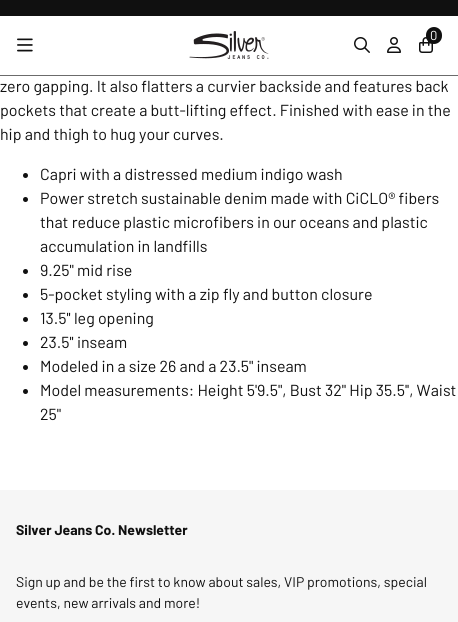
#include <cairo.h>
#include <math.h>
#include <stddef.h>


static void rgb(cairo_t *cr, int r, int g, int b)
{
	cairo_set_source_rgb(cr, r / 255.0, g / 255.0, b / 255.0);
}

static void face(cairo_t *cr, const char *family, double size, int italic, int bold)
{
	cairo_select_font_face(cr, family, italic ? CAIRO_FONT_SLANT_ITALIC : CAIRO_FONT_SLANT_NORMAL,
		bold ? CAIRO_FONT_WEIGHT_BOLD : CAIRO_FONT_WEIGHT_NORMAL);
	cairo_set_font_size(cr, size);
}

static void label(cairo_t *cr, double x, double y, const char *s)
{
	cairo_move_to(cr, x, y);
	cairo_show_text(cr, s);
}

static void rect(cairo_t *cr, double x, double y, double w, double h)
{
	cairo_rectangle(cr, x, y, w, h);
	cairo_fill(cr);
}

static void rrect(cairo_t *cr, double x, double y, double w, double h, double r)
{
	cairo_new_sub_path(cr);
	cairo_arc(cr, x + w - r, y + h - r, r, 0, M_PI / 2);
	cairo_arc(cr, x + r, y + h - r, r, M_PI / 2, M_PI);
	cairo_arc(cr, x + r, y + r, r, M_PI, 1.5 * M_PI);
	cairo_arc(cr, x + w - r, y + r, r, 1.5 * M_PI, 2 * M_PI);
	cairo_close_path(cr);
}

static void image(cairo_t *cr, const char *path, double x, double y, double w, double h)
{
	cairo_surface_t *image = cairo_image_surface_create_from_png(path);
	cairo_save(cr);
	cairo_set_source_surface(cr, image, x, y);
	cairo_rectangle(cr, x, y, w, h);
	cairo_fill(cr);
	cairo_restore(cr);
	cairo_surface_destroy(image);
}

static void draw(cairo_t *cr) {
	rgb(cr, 255, 255, 255);
	cairo_paint(cr);
	rgb(cr, 16, 16, 16);
	rect(cr, 0, 0, 458, 16);
	rgb(cr, 107, 107, 107);
	rect(cr, 0, 75, 458, 1);
	image(cr, "image0.png", 17, 38, 16, 14);
	image(cr, "image1.png", 189, 31, 80, 28);
	image(cr, "image2.png", 419, 37, 14, 16);
	rgb(cr, 16, 16, 16);
	rrect(cr, 426, 27, 16, 17, 8);
	cairo_fill(cr);
	face(cr, "Barlow", 13, 0, 0);
	rgb(cr, 255, 255, 255);
	label(cr, 430, 40, "0");
	image(cr, "image3.png", 354, 37, 16, 16);
	image(cr, "image4.png", 387, 37, 14, 16);
	face(cr, "Barlow", 16, 0, 0);
	rgb(cr, 16, 16, 16);
	label(cr, 0, 92, "zero gapping. It also flatters a curvier backside and features back");
	label(cr, 0, 116, "pockets that create a butt-lifting effect. Finished with ease in the");
	label(cr, 0, 140, "hip and thigh to hug your curves.");
	cairo_new_path(cr);
	cairo_arc(cr, 25.5, 175.5, 2.5, 0, 2 * M_PI);
	cairo_fill(cr);
	label(cr, 40, 180, "Capri with a distressed medium indigo wash");
	cairo_new_path(cr);
	cairo_arc(cr, 25.5, 199.5, 2.5, 0, 2 * M_PI);
	cairo_fill(cr);
	label(cr, 40, 204, "Power stretch sustainable denim made with CiCLO® fibers");
	label(cr, 40, 228, "that reduce plastic microfibers in our oceans and plastic");
	label(cr, 40, 252, "accumulation in landfills");
	cairo_new_path(cr);
	cairo_arc(cr, 25.5, 271.5, 2.5, 0, 2 * M_PI);
	cairo_fill(cr);
	label(cr, 40, 276, "9.25'' mid rise");
	cairo_new_path(cr);
	cairo_arc(cr, 25.5, 295.5, 2.5, 0, 2 * M_PI);
	cairo_fill(cr);
	label(cr, 40, 300, "5-pocket styling with a zip fly and button closure");
	cairo_new_path(cr);
	cairo_arc(cr, 25.5, 319.5, 2.5, 0, 2 * M_PI);
	cairo_fill(cr);
	label(cr, 40, 324, "13.5'' leg opening");
	cairo_new_path(cr);
	cairo_arc(cr, 25.5, 343.5, 2.5, 0, 2 * M_PI);
	cairo_fill(cr);
	label(cr, 40, 348, "23.5'' inseam");
	cairo_new_path(cr);
	cairo_arc(cr, 25.5, 367.5, 2.5, 0, 2 * M_PI);
	cairo_fill(cr);
	label(cr, 40, 372, "Modeled in a size 26 and a 23.5'' inseam");
	cairo_new_path(cr);
	cairo_arc(cr, 25.5, 391.5, 2.5, 0, 2 * M_PI);
	cairo_fill(cr);
	label(cr, 40, 396, "Model measurements: Height 5'9.5'', Bust 32'' Hip 35.5'', Waist");
	label(cr, 40, 420, "25''");
	rgb(cr, 246, 246, 246);
	rect(cr, 0, 490, 458, 132);
	face(cr, "Barlow", 14, 0, 1);
	rgb(cr, 16, 16, 16);
	label(cr, 16, 535, "Silver Jeans Co. Newsletter");
	face(cr, "Barlow", 14, 0, 0);
	label(cr, 16, 587, "Sign up and be the first to know about sales, VIP promotions, special");
	label(cr, 16, 608, "events, new arrivals and more!");
}

int main(void) {
	cairo_surface_t *surface = cairo_image_surface_create(CAIRO_FORMAT_RGB24, 458, 622);
	cairo_t *cr = cairo_create(surface);
	cairo_font_options_t *options = cairo_font_options_create();
	cairo_font_options_set_hint_metrics(options, CAIRO_HINT_METRICS_OFF);
	cairo_font_options_set_hint_style(options, CAIRO_HINT_STYLE_NONE);
	cairo_set_font_options(cr, options);
	cairo_set_miter_limit(cr, 4);
	draw(cr);
	cairo_surface_write_to_png(surface, "render.png");
	cairo_font_options_destroy(options);
	cairo_destroy(cr);
	cairo_surface_destroy(surface);
	return 0;
}
